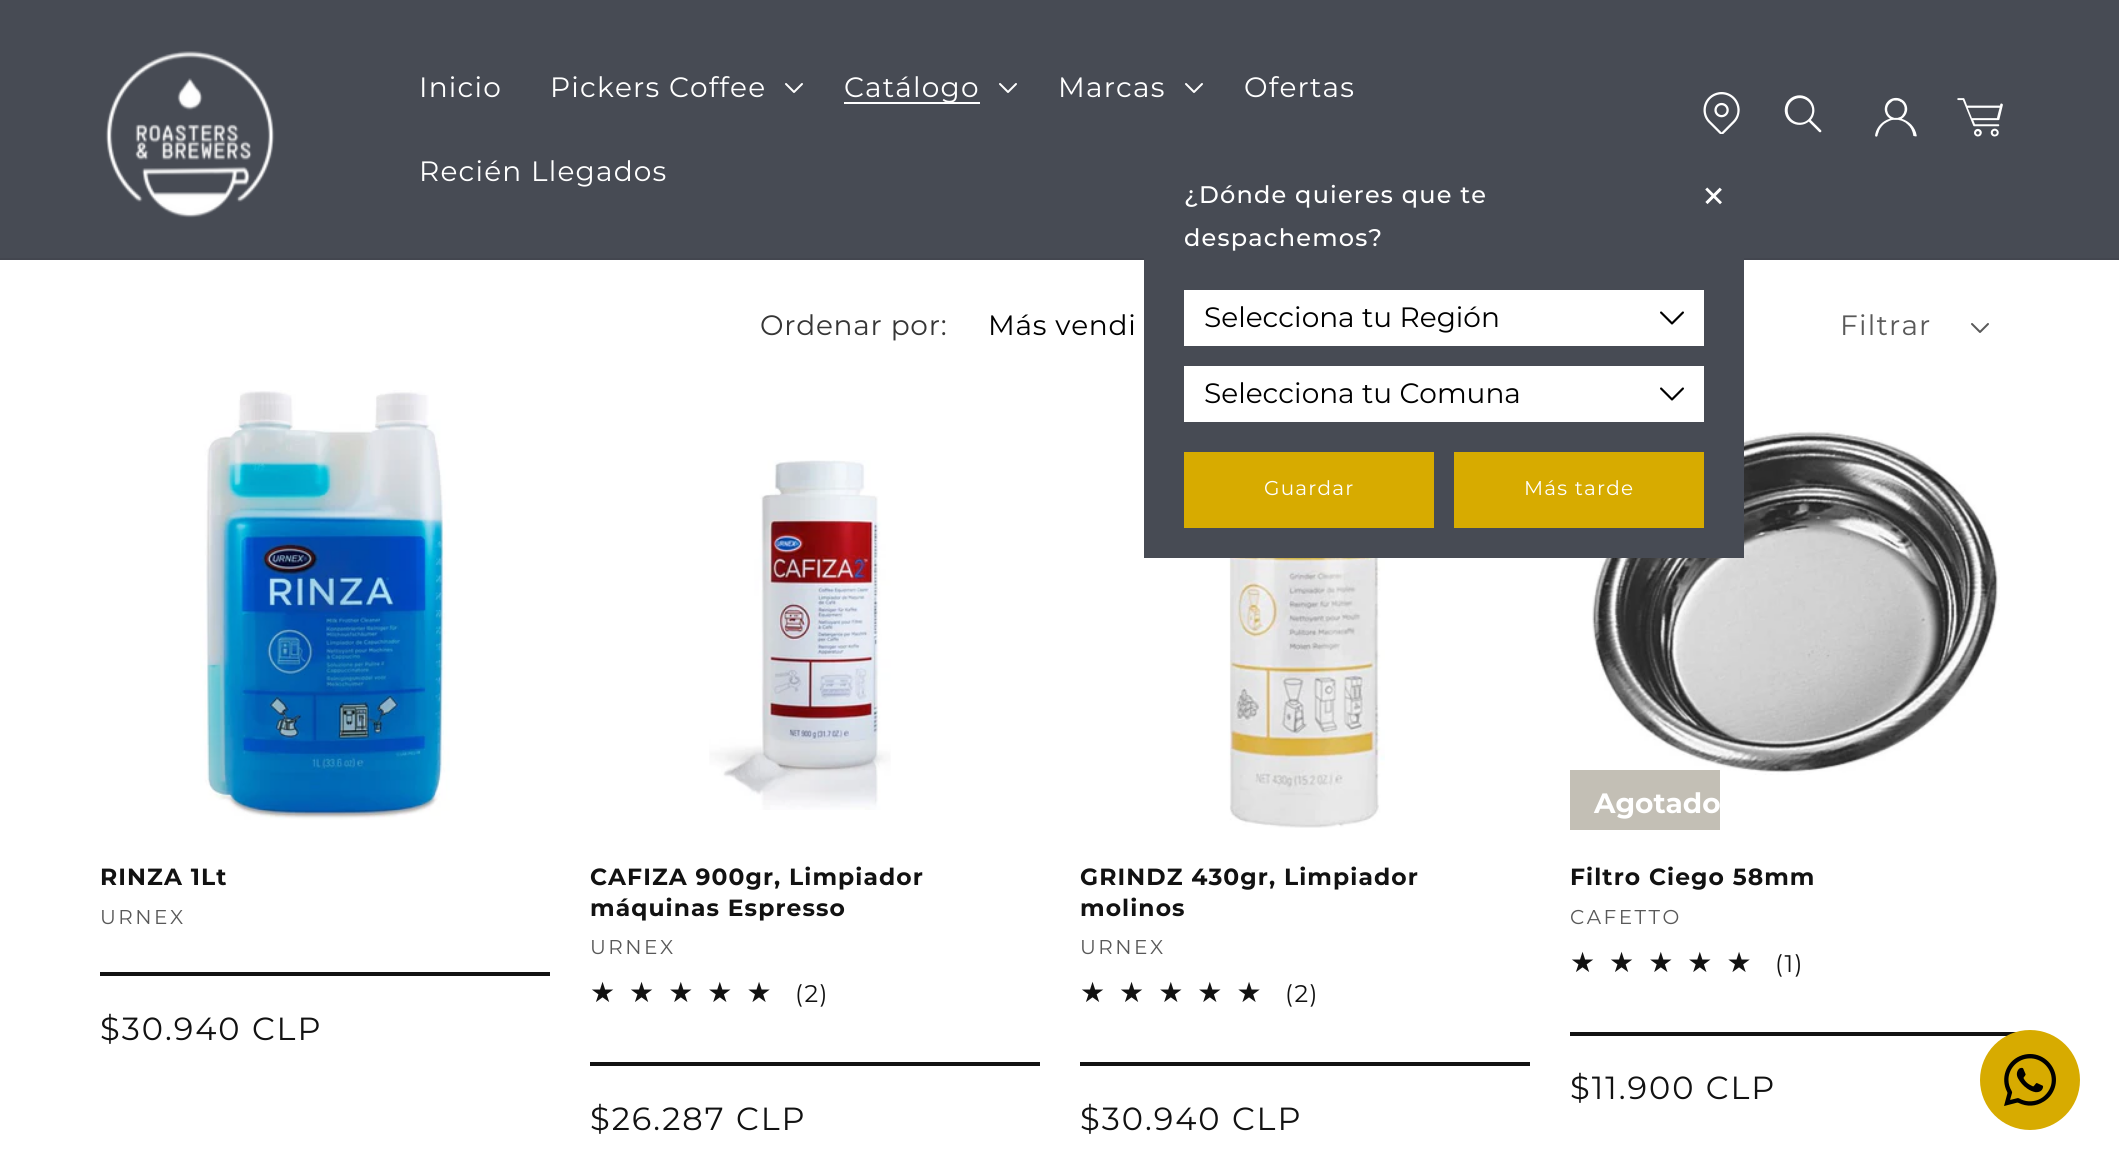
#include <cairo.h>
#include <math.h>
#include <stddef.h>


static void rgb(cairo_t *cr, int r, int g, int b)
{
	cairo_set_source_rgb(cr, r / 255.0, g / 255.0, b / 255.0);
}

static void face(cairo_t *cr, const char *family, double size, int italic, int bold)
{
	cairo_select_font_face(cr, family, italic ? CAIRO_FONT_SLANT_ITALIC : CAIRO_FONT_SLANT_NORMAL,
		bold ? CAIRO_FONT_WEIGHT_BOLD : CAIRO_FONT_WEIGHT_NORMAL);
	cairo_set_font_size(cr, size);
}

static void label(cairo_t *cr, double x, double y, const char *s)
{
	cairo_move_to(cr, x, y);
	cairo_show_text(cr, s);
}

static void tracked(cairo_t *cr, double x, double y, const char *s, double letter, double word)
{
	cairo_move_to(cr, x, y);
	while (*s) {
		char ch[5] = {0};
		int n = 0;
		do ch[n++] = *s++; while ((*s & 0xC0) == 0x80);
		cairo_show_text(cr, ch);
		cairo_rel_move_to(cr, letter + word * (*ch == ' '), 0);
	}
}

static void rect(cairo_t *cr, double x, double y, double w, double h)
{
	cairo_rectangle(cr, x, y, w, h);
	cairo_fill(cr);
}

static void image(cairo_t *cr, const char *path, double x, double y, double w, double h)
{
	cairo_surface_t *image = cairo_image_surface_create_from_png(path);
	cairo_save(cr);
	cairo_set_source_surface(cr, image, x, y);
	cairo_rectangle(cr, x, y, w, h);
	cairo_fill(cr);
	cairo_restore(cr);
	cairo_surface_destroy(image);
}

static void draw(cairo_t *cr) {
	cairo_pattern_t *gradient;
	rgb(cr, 255, 255, 255);
	cairo_paint(cr);
	rgb(cr, 71, 75, 84);
	rect(cr, 0, 0, 2119, 258);
	rgb(cr, 67, 70, 79);
	rect(cr, 0, 258, 2119, 2);
	image(cr, "image0.png", 105, 51, 170, 167);
	face(cr, "Montserrat", 28, 0, 0);
	rgb(cr, 255, 255, 255);
	tracked(cr, 419, 97, "Inicio", 1.2, 0);
	tracked(cr, 550, 97, "Pickers Coffee", 1.2, 0);
	image(cr, "image1.png", 785, 83, 18, 10);
	rect(cr, 844, 102, 136, 2);
	tracked(cr, 844, 97, "Catálogo", 1.2, 0);
	image(cr, "image1.png", 999, 83, 18, 10);
	tracked(cr, 1058, 97, "Marcas", 1.2, 0);
	image(cr, "image1.png", 1185, 83, 18, 10);
	tracked(cr, 1244, 97, "Ofertas", 1.2, 0);
	tracked(cr, 419, 181, "Recién Llegados", 1.2, 0);
	image(cr, "image2.png", 1784, 95, 38, 38);
	image(cr, "image3.png", 1875, 97, 42, 40);
	image(cr, "image4.png", 1957, 98, 46, 39);
	image(cr, "image5.png", 1703, 92, 37, 42);
	image(cr, "image11.png", 1592, 430, 408, 345);
	rgb(cr, 71, 75, 84);
	rect(cr, 1144, 258, 600, 300);
	face(cr, "Montserrat Medium", 24, 0, 0);
	rgb(cr, 255, 255, 255);
	tracked(cr, 1184, 203, "¿Dónde quieres que te", 1.2, 0);
	tracked(cr, 1184, 246, "despachemos?", 1.2, 0);
	face(cr, "Montserrat", 48, 0, 0);
	cairo_save(cr);
	cairo_translate(cr, 1692, 198);
	cairo_rotate(cr, 45 * M_PI / 180);
	tracked(cr, 0, 0, "+", 1.2, 0);
	cairo_restore(cr);
	rect(cr, 1184, 290, 520, 56);
	image(cr, "image6.png", 1660, 311, 24, 14);
	face(cr, "Montserrat", 28, 0, 0);
	rgb(cr, 0, 0, 0);
	label(cr, 1204, 327, "Selecciona tu Región");
	rgb(cr, 255, 255, 255);
	rect(cr, 1184, 366, 520, 56);
	image(cr, "image6.png", 1660, 387, 24, 14);
	rgb(cr, 0, 0, 0);
	label(cr, 1204, 403, "Selecciona tu Comuna");
	rgb(cr, 215, 171, 0);
	rect(cr, 1184, 452, 250, 76);
	face(cr, "Montserrat", 20, 0, 0);
	rgb(cr, 255, 255, 255);
	tracked(cr, 1264, 495, "Guardar", 1.2, 0);
	rgb(cr, 215, 171, 0);
	rect(cr, 1454, 452, 250, 76);
	rgb(cr, 255, 255, 255);
	tracked(cr, 1524, 495, "Más tarde", 1.2, 0);
	face(cr, "Montserrat", 28, 0, 0);
	rgb(cr, 54, 54, 54);
	tracked(cr, 760, 335, "Ordenar por:", 0.75, 0);
	rgb(cr, 0, 0, 0);
	tracked(cr, 988, 335, "Más vendi", 0.75, 0);
	rgb(cr, 89, 89, 89);
	tracked(cr, 1840, 335, "Filtrar", 1.2, 0);
	image(cr, "image7.png", 1971, 323, 18, 10);
	image(cr, "image8.png", 200, 390, 250, 430);
	face(cr, "Montserrat", 23.4, 0, 1);
	rgb(cr, 18, 18, 18);
	tracked(cr, 100, 885, "RINZA 1Lt", 1.1, 0);
	face(cr, "Montserrat", 20, 0, 0);
	rgb(cr, 89, 89, 89);
	tracked(cr, 100, 924, "URNEX", 2.5, 0);
	rgb(cr, 18, 18, 18);
	rect(cr, 100, 972, 450, 4);
	face(cr, "Montserrat", 32, 0, 0);
	tracked(cr, 100, 1040, "$30.940 CLP", 2, 0);
	image(cr, "image9.png", 709, 460, 182, 350);
	face(cr, "Montserrat", 23.4, 0, 1);
	tracked(cr, 590, 885, "CAFIZA 900gr, Limpiador", 1.1, 0);
	tracked(cr, 590, 916, "máquinas Espresso", 1.1, 0);
	face(cr, "Montserrat", 20, 0, 0);
	rgb(cr, 89, 89, 89);
	tracked(cr, 590, 954, "URNEX", 2.5, 0);
	face(cr, "DejaVu Sans", 28, 0, 0);
	gradient = cairo_pattern_create_linear(590, 993, 786, 993);
	cairo_pattern_add_color_stop_rgba(gradient, 1, 0.071, 0.071, 0.071, 1);
	cairo_pattern_add_color_stop_rgba(gradient, 1, 0.859, 0.859, 0.859, 1);
	cairo_set_source(cr, gradient);
	cairo_pattern_destroy(gradient);
	tracked(cr, 590, 1002, "★★★★★", 14, 0);
	face(cr, "Montserrat", 24, 0, 0);
	rgb(cr, 18, 18, 18);
	tracked(cr, 795, 1002, "(2)", 1.5, 0);
	rect(cr, 590, 1062, 450, 4);
	face(cr, "Montserrat", 32, 0, 0);
	tracked(cr, 590, 1130, "$26.287 CLP", 2, 0);
	image(cr, "image10.png", 1228, 558, 157, 270);
	face(cr, "Montserrat", 23.4, 0, 1);
	tracked(cr, 1080, 885, "GRINDZ 430gr, Limpiador", 1.1, 0);
	tracked(cr, 1080, 916, "molinos", 1.1, 0);
	face(cr, "Montserrat", 20, 0, 0);
	rgb(cr, 89, 89, 89);
	tracked(cr, 1080, 954, "URNEX", 2.5, 0);
	face(cr, "DejaVu Sans", 28, 0, 0);
	gradient = cairo_pattern_create_linear(1080, 993, 1276, 993);
	cairo_pattern_add_color_stop_rgba(gradient, 1, 0.071, 0.071, 0.071, 1);
	cairo_pattern_add_color_stop_rgba(gradient, 1, 0.859, 0.859, 0.859, 1);
	cairo_set_source(cr, gradient);
	cairo_pattern_destroy(gradient);
	tracked(cr, 1080, 1002, "★★★★★", 14, 0);
	face(cr, "Montserrat", 24, 0, 0);
	rgb(cr, 18, 18, 18);
	tracked(cr, 1285, 1002, "(2)", 1.5, 0);
	rect(cr, 1080, 1062, 450, 4);
	face(cr, "Montserrat", 32, 0, 0);
	tracked(cr, 1080, 1130, "$30.940 CLP", 2, 0);
	rgb(cr, 195, 191, 181);
	rect(cr, 1570, 770, 150, 60);
	face(cr, "Montserrat", 28, 0, 1);
	rgb(cr, 255, 255, 255);
	label(cr, 1594, 813, "Agotado");
	face(cr, "Montserrat", 23.4, 0, 1);
	rgb(cr, 18, 18, 18);
	tracked(cr, 1570, 885, "Filtro Ciego 58mm", 1.1, 0);
	face(cr, "Montserrat", 20, 0, 0);
	rgb(cr, 89, 89, 89);
	tracked(cr, 1570, 924, "CAFETTO", 2.5, 0);
	face(cr, "DejaVu Sans", 28, 0, 0);
	gradient = cairo_pattern_create_linear(1570, 963, 1766, 963);
	cairo_pattern_add_color_stop_rgba(gradient, 1, 0.071, 0.071, 0.071, 1);
	cairo_pattern_add_color_stop_rgba(gradient, 1, 0.859, 0.859, 0.859, 1);
	cairo_set_source(cr, gradient);
	cairo_pattern_destroy(gradient);
	tracked(cr, 1570, 972, "★★★★★", 14, 0);
	face(cr, "Montserrat", 24, 0, 0);
	rgb(cr, 18, 18, 18);
	tracked(cr, 1775, 972, "(1)", 1.5, 0);
	rect(cr, 1570, 1032, 450, 4);
	face(cr, "Montserrat", 32, 0, 0);
	tracked(cr, 1570, 1099, "$11.900 CLP", 2, 0);
	rgb(cr, 215, 171, 0);
	cairo_new_path(cr);
	cairo_arc(cr, 2030, 1080, 50, 0, 2 * M_PI);
	cairo_fill(cr);
	image(cr, "image12.png", 2004, 1054, 52, 52);
}

int main(void) {
	cairo_surface_t *surface = cairo_image_surface_create(CAIRO_FORMAT_RGB24, 2119, 1169);
	cairo_t *cr = cairo_create(surface);
	cairo_font_options_t *options = cairo_font_options_create();
	cairo_font_options_set_hint_metrics(options, CAIRO_HINT_METRICS_OFF);
	cairo_font_options_set_hint_style(options, CAIRO_HINT_STYLE_NONE);
	cairo_set_font_options(cr, options);
	cairo_set_miter_limit(cr, 4);
	draw(cr);
	cairo_surface_write_to_png(surface, "render.png");
	cairo_font_options_destroy(options);
	cairo_destroy(cr);
	cairo_surface_destroy(surface);
	return 0;
}
